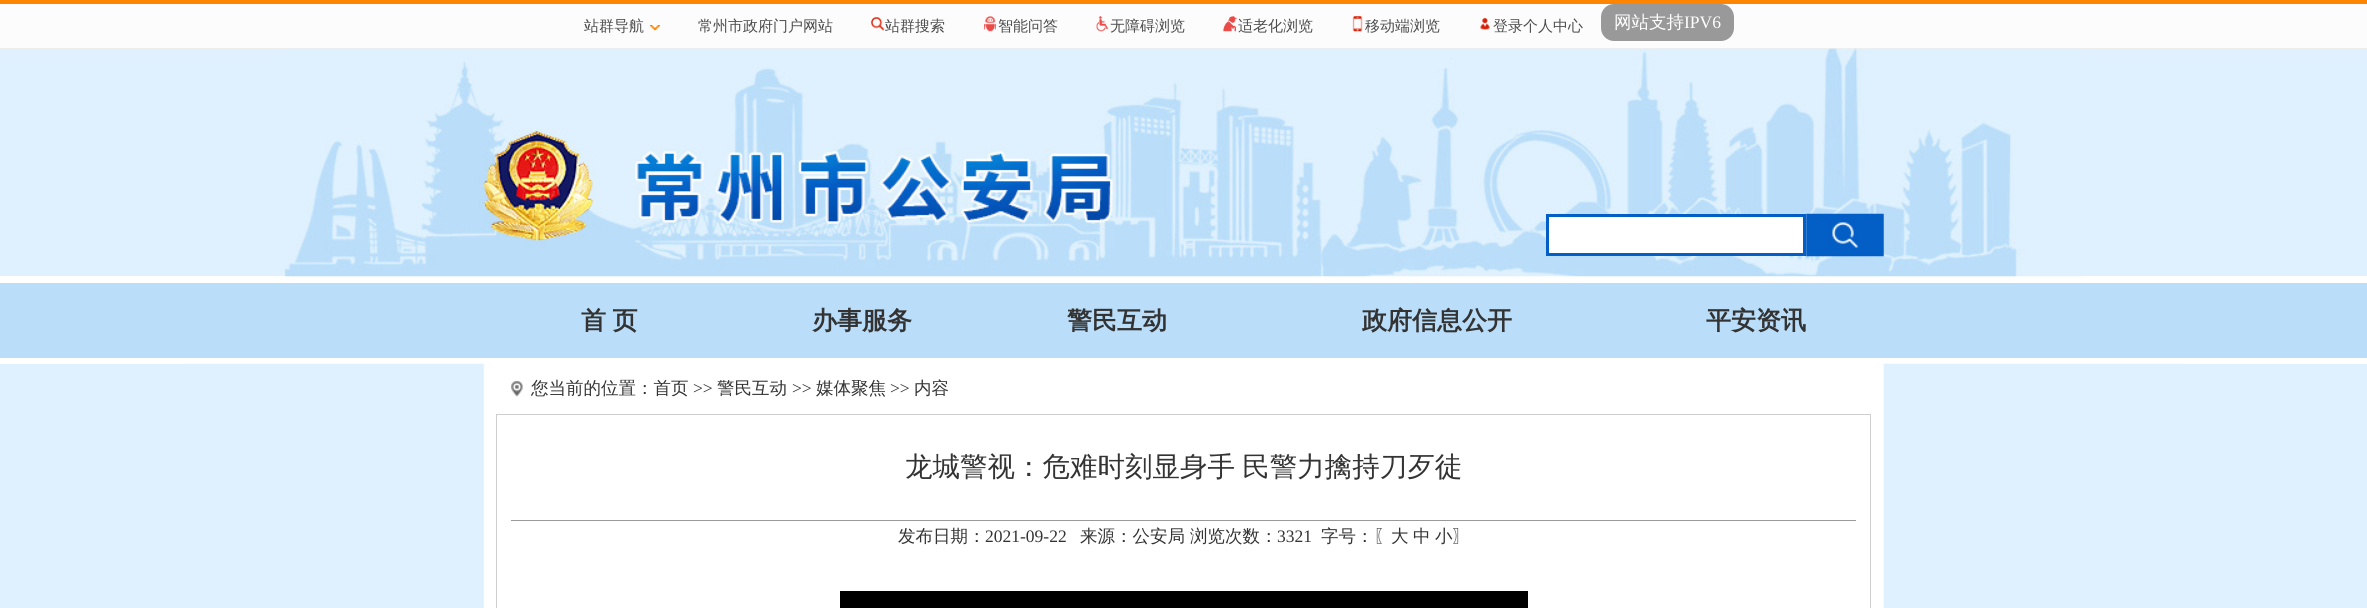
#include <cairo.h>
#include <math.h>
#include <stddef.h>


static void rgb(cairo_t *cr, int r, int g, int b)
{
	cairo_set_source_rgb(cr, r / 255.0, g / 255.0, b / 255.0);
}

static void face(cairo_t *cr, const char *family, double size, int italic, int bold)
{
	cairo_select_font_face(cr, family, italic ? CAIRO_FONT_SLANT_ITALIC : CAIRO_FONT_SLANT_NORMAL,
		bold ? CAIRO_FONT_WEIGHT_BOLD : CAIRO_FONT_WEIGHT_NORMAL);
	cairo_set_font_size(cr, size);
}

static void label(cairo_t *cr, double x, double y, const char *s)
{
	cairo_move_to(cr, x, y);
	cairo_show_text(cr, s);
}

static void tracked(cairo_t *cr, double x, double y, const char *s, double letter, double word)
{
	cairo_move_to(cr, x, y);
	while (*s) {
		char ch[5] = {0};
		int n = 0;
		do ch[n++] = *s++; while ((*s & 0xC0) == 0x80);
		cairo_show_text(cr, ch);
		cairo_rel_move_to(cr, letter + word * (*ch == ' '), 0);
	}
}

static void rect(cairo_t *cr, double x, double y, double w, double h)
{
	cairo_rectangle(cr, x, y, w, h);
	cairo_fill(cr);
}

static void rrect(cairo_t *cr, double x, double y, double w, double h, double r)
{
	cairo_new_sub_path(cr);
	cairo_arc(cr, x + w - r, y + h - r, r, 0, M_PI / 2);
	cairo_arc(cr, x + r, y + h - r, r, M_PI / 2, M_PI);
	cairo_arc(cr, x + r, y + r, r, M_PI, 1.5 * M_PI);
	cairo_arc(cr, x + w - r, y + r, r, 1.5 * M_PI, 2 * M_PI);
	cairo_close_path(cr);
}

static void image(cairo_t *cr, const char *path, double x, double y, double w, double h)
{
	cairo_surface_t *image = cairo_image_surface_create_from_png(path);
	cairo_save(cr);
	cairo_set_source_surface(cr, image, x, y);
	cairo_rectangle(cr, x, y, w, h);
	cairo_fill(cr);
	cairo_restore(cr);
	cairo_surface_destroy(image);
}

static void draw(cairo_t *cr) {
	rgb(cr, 255, 255, 255);
	cairo_paint(cr);
	rgb(cr, 252, 252, 252);
	rect(cr, 0, 4, 2367, 44);
	rgb(cr, 255, 133, 0);
	rect(cr, 0, 0, 2367, 4);
	rgb(cr, 238, 238, 238);
	rect(cr, 0, 48, 2367, 1);
	face(cr, "WenQuanYi Zen Hei Medium", 15, 0, 0);
	rgb(cr, 76, 76, 76);
	label(cr, 584, 31, "站群导航");
	image(cr, "image0.png", 650, 25, 10, 6);
	label(cr, 698, 31, "常州市政府门户网站");
	image(cr, "image1.png", 871, 17, 14, 14);
	label(cr, 885, 31, "站群搜索");
	image(cr, "image2.png", 984, 16, 12, 16);
	label(cr, 998, 31, "智能问答");
	image(cr, "image3.png", 1096, 16, 12, 16);
	label(cr, 1110, 31, "无障碍浏览");
	image(cr, "image4.png", 1223, 16, 14, 16);
	label(cr, 1238, 31, "适老化浏览");
	image(cr, "image5.png", 1352, 16, 11, 16);
	label(cr, 1365, 31, "移动端浏览");
	image(cr, "image6.png", 1480, 18, 10, 12);
	label(cr, 1493, 31, "登录个人中心");
	rgb(cr, 153, 153, 153);
	rrect(cr, 1601, 4, 133, 37, 13);
	cairo_fill(cr);
	face(cr, "WenQuanYi Zen Hei Medium", 17.5, 0, 0);
	rgb(cr, 255, 255, 255);
	label(cr, 1614, 28, "网站支持");
	face(cr, "Liberation Serif", 17.5, 0, 0);
	label(cr, 1684, 28, "IPV6");
	rgb(cr, 223, 241, 255);
	rect(cr, 0, 49, 2367, 227);
	image(cr, "image7.png", 285, 48, 1798, 229);
	rgb(cr, 255, 255, 255);
	cairo_rectangle(cr, 1547.5, 215.5, 257, 39);
	cairo_fill_preserve(cr);
	rgb(cr, 3, 95, 198);
	cairo_set_line_width(cr, 3);
	cairo_stroke(cr);
	image(cr, "image8.png", 1806, 213, 78, 44);
	rgb(cr, 186, 222, 250);
	rect(cr, 0, 283, 2367, 75);
	face(cr, "WenQuanYi Zen Hei", 25, 0, 1);
	rgb(cr, 51, 51, 51);
	tracked(cr, 581, 329, "首 页", 0, -1);
	label(cr, 812, 329, "办事服务");
	label(cr, 1067, 329, "警民互动");
	label(cr, 1362, 329, "政府信息公开");
	label(cr, 1706, 329, "平安资讯");
	rgb(cr, 223, 241, 255);
	rect(cr, 0, 364, 2367, 244);
	image(cr, "image9.png", 184, 363, 2000, 245);
	image(cr, "image10.png", 511, 381, 12, 16);
	face(cr, "WenQuanYi Zen Hei Medium", 17.5, 0, 0);
	rgb(cr, 51, 51, 51);
	label(cr, 531, 394, "您当前的位置：首页");
	face(cr, "Liberation Serif", 17.5, 0, 0);
	label(cr, 693, 394, ">>");
	face(cr, "WenQuanYi Zen Hei Medium", 17.5, 0, 0);
	label(cr, 717, 394, "警民互动");
	face(cr, "Liberation Serif", 17.5, 0, 0);
	label(cr, 792, 394, ">>");
	face(cr, "WenQuanYi Zen Hei Medium", 17.5, 0, 0);
	label(cr, 816, 394, "媒体聚焦");
	face(cr, "Liberation Serif", 17.5, 0, 0);
	label(cr, 890, 394, ">>");
	face(cr, "WenQuanYi Zen Hei Medium", 17.5, 0, 0);
	label(cr, 914, 394, "内容");
	cairo_rectangle(cr, 496.5, 414.5, 1374, 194);
	rgb(cr, 206, 206, 206);
	cairo_set_line_width(cr, 1);
	cairo_stroke(cr);
	rgb(cr, 153, 153, 153);
	rect(cr, 511, 520, 1345, 1);
	face(cr, "WenQuanYi Zen Hei Medium", 27.5, 0, 0);
	rgb(cr, 51, 51, 51);
	tracked(cr, 905, 476, "龙城警视：危难时刻显身手 民警力擒持刀歹徒", 0, -1);
	face(cr, "WenQuanYi Zen Hei Medium", 17.5, 0, 0);
	label(cr, 898, 542, "发布日期：");
	face(cr, "Liberation Serif", 17.5, 0, 0);
	label(cr, 985, 542, "2021-09-22");
	face(cr, "WenQuanYi Zen Hei Medium", 17.5, 0, 0);
	label(cr, 1080, 542, "来源：公安局");
	label(cr, 1190, 542, "浏览次数：");
	face(cr, "Liberation Serif", 17.5, 0, 0);
	label(cr, 1277, 542, "3321");
	face(cr, "WenQuanYi Zen Hei Medium", 17.5, 0, 0);
	label(cr, 1321, 542, "字号：〖大");
	label(cr, 1413, 542, "中");
	label(cr, 1435, 542, "小〗");
	rgb(cr, 0, 0, 0);
	rect(cr, 840, 591, 688, 17);
}

int main(void) {
	cairo_surface_t *surface = cairo_image_surface_create(CAIRO_FORMAT_RGB24, 2367, 608);
	cairo_t *cr = cairo_create(surface);
	cairo_font_options_t *options = cairo_font_options_create();
	cairo_font_options_set_hint_metrics(options, CAIRO_HINT_METRICS_OFF);
	cairo_font_options_set_hint_style(options, CAIRO_HINT_STYLE_NONE);
	cairo_set_font_options(cr, options);
	cairo_set_miter_limit(cr, 4);
	draw(cr);
	cairo_surface_write_to_png(surface, "render.png");
	cairo_font_options_destroy(options);
	cairo_destroy(cr);
	cairo_surface_destroy(surface);
	return 0;
}
